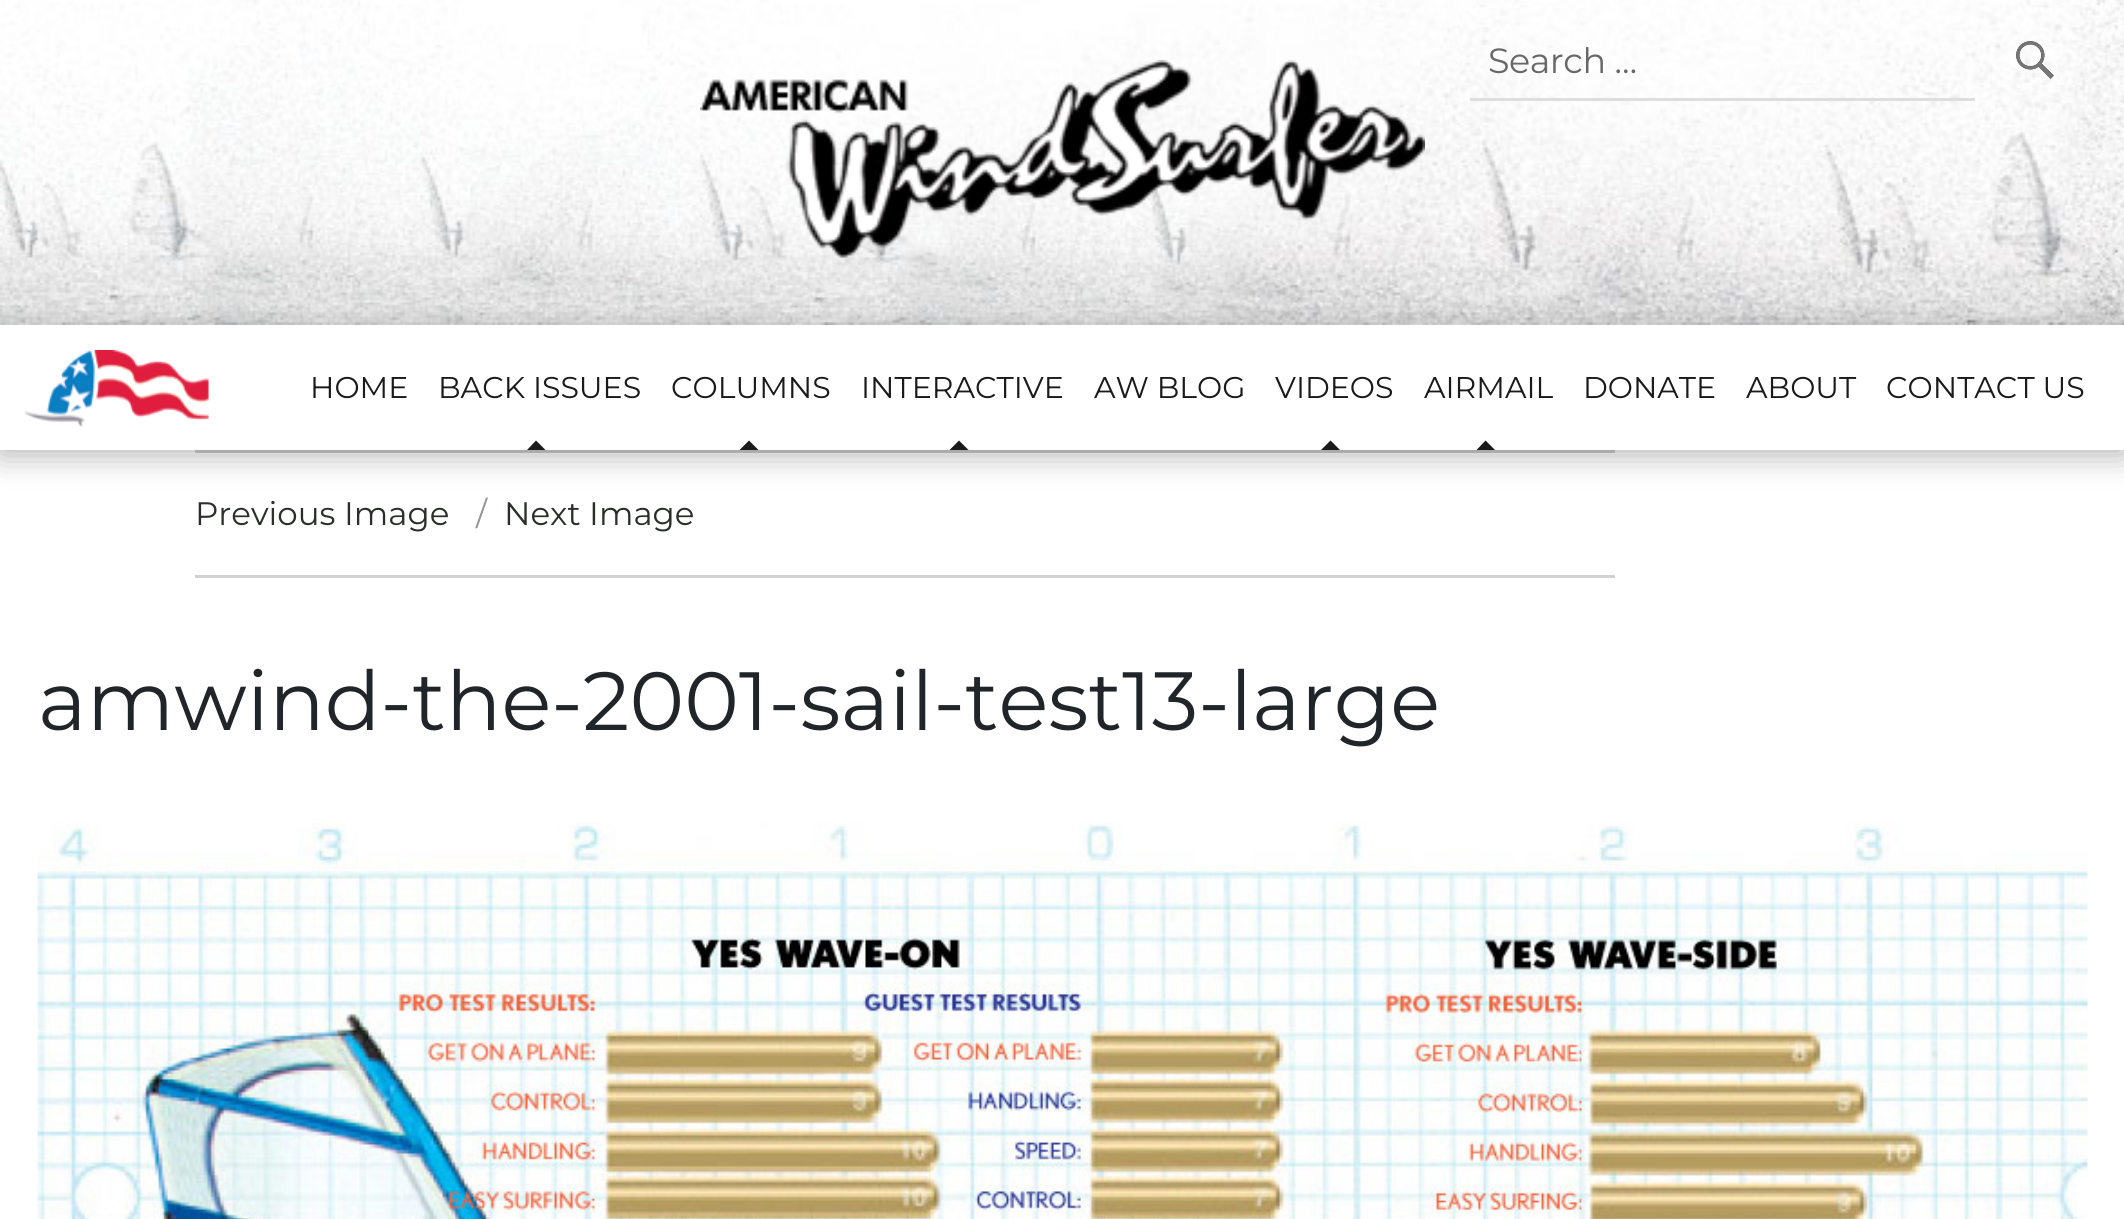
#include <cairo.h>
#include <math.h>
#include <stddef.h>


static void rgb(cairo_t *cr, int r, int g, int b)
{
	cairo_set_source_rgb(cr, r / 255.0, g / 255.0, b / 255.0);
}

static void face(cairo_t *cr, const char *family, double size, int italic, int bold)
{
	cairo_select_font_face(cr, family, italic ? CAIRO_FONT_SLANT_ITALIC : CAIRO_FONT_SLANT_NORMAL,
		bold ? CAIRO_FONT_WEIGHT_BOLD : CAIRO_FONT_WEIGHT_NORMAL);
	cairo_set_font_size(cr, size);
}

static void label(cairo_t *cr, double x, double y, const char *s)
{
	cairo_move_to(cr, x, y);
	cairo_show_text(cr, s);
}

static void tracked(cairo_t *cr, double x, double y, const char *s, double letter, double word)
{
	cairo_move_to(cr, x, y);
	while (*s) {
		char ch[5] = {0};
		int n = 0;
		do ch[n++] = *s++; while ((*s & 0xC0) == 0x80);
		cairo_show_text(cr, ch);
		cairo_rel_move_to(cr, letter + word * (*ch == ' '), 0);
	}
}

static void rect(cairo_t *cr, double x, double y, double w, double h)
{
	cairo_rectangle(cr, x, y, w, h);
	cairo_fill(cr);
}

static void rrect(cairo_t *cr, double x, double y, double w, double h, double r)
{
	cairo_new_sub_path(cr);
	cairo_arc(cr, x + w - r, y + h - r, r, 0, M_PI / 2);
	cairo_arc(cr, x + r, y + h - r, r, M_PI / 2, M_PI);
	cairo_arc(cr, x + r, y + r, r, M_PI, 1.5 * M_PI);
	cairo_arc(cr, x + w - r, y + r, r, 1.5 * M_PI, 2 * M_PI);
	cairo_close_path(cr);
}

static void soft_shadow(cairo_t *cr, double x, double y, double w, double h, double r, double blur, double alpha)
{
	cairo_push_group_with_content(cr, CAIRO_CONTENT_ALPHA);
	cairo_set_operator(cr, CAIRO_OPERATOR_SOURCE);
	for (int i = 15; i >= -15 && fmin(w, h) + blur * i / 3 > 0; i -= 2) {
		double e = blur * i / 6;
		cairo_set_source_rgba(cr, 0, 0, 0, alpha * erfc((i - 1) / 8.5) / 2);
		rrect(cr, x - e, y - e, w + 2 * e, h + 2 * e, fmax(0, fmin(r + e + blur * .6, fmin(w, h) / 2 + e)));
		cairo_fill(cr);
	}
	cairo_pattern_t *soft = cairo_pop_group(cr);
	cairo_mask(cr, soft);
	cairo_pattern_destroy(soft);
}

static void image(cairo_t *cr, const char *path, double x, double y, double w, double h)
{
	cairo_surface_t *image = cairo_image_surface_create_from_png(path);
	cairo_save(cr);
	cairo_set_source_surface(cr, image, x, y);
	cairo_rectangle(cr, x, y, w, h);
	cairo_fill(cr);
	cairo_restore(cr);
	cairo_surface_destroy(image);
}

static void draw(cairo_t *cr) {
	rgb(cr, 255, 255, 255);
	cairo_paint(cr);
	image(cr, "image0.png", 0, 0, 2124, 325);
	image(cr, "image1.png", 700, 60, 725, 198);
	rgb(cr, 222, 222, 222);
	rect(cr, 1470, 98, 505, 3);
	face(cr, "Montserrat Thin", 35, 0, 0);
	rgb(cr, 104, 104, 104);
	tracked(cr, 1488, 73, "Search …", -0.5, 0);
	image(cr, "image3.png", 2016, 41, 38, 38);
	image(cr, "image2.png", 2016, 41, 38, 38);
	rgb(cr, 209, 209, 209);
	rect(cr, 195, 450, 1420, 3);
	cairo_save(cr);
	cairo_set_fill_rule(cr, CAIRO_FILL_RULE_EVEN_ODD);
	cairo_new_path(cr);
	cairo_move_to(cr, 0, 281);
	cairo_line_to(cr, 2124, 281);
	cairo_line_to(cr, 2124, 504);
	cairo_line_to(cr, 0, 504);
	cairo_close_path(cr);
	cairo_move_to(cr, 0, 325);
	cairo_line_to(cr, 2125, 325);
	cairo_line_to(cr, 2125, 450);
	cairo_line_to(cr, 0, 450);
	cairo_close_path(cr);
	cairo_clip(cr);
	rgb(cr, 0, 0, 0);
	soft_shadow(cr, 0, 330, 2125, 125, 0, 16, 0.3);
	cairo_restore(cr);
	image(cr, "image4.png", 24, 350, 185, 77);
	face(cr, "Montserrat Thin", 30, 0, 0);
	rgb(cr, 26, 26, 26);
	label(cr, 310, 398, "HOME");
	label(cr, 438, 398, "BACK ISSUES");
	cairo_new_path(cr);
	cairo_move_to(cr, 545.5, 450);
	cairo_line_to(cr, 527, 450);
	cairo_line_to(cr, 536, 440.5);
	cairo_close_path(cr);
	cairo_fill(cr);
	label(cr, 671, 398, "COLUMNS");
	cairo_new_path(cr);
	cairo_move_to(cr, 758.5, 450);
	cairo_line_to(cr, 739.5, 450);
	cairo_line_to(cr, 749, 440.5);
	cairo_close_path(cr);
	cairo_fill(cr);
	label(cr, 861, 398, "INTERACTIVE");
	cairo_new_path(cr);
	cairo_move_to(cr, 968.5, 450);
	cairo_line_to(cr, 949.5, 450);
	cairo_line_to(cr, 959, 440.5);
	cairo_close_path(cr);
	cairo_fill(cr);
	label(cr, 1094, 398, "AW BLOG");
	label(cr, 1275, 398, "VIDEOS");
	cairo_new_path(cr);
	cairo_move_to(cr, 1340, 450);
	cairo_line_to(cr, 1321, 450);
	cairo_line_to(cr, 1330.5, 440.5);
	cairo_close_path(cr);
	cairo_fill(cr);
	label(cr, 1424, 398, "AIRMAIL");
	cairo_new_path(cr);
	cairo_move_to(cr, 1495, 450);
	cairo_line_to(cr, 1476.5, 450);
	cairo_line_to(cr, 1485.5, 440.5);
	cairo_close_path(cr);
	cairo_fill(cr);
	label(cr, 1583, 398, "DONATE");
	label(cr, 1746, 398, "ABOUT");
	label(cr, 1886, 398, "CONTACT US");
	rgb(cr, 209, 209, 209);
	rect(cr, 195, 575, 1420, 3);
	face(cr, "Montserrat Thin", 32.5, 0, 0);
	rgb(cr, 42, 47, 42);
	label(cr, 195, 525, "Previous Image");
	rgb(cr, 149, 149, 149);
	label(cr, 476, 525, "/");
	rgb(cr, 42, 47, 42);
	label(cr, 504, 525, "Next Image");
	face(cr, "Montserrat Thin", 82.5, 0, 0);
	rgb(cr, 33, 37, 41);
	label(cr, 38, 730, "amwind-the-2001-sail-test13-large");
	image(cr, "image5.png", 37, 822, 2051, 397);
}

int main(void) {
	cairo_surface_t *surface = cairo_image_surface_create(CAIRO_FORMAT_RGB24, 2124, 1219);
	cairo_t *cr = cairo_create(surface);
	cairo_font_options_t *options = cairo_font_options_create();
	cairo_font_options_set_hint_metrics(options, CAIRO_HINT_METRICS_OFF);
	cairo_font_options_set_hint_style(options, CAIRO_HINT_STYLE_NONE);
	cairo_set_font_options(cr, options);
	cairo_set_miter_limit(cr, 4);
	draw(cr);
	cairo_surface_write_to_png(surface, "render.png");
	cairo_font_options_destroy(options);
	cairo_destroy(cr);
	cairo_surface_destroy(surface);
	return 0;
}
